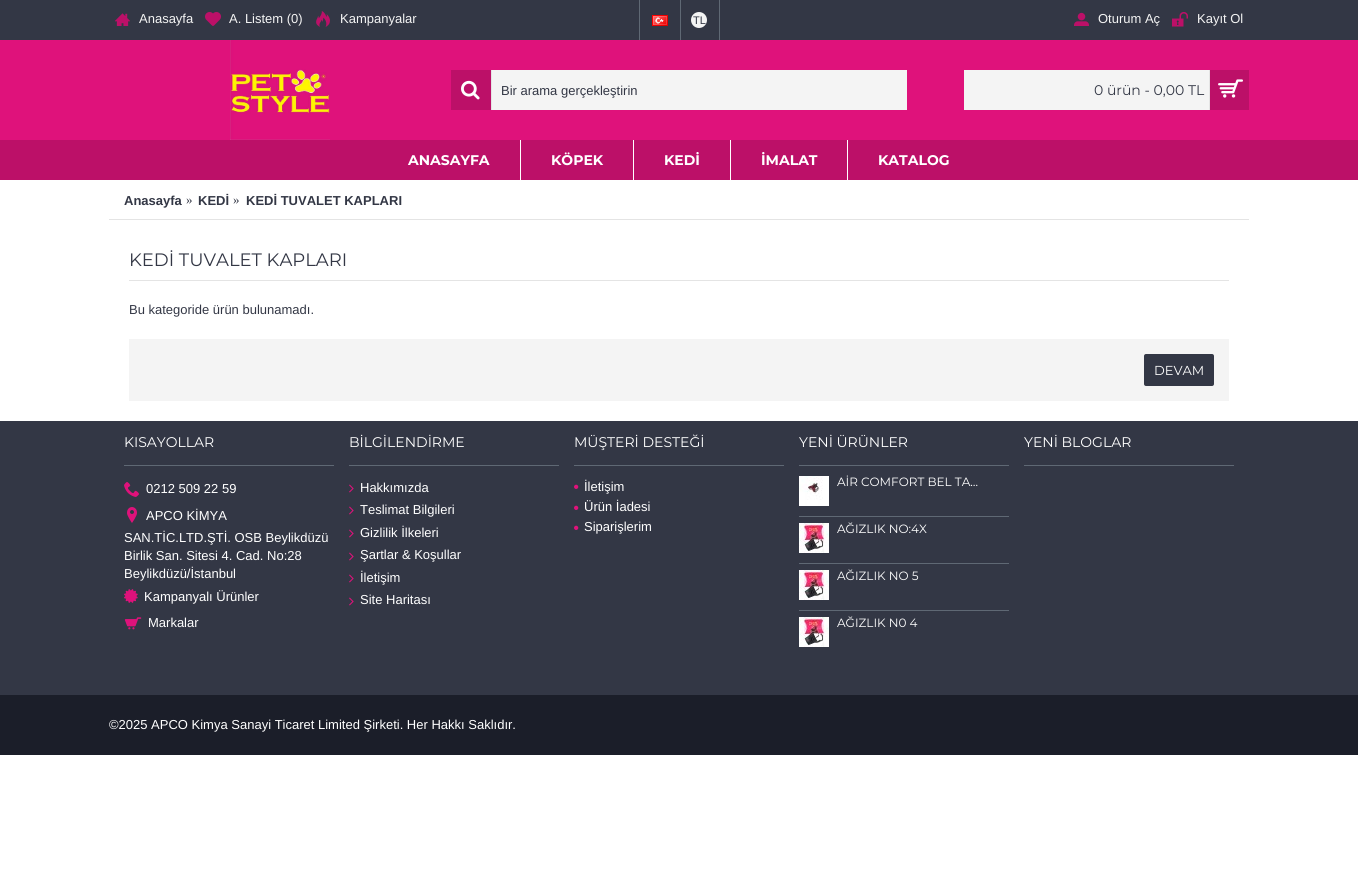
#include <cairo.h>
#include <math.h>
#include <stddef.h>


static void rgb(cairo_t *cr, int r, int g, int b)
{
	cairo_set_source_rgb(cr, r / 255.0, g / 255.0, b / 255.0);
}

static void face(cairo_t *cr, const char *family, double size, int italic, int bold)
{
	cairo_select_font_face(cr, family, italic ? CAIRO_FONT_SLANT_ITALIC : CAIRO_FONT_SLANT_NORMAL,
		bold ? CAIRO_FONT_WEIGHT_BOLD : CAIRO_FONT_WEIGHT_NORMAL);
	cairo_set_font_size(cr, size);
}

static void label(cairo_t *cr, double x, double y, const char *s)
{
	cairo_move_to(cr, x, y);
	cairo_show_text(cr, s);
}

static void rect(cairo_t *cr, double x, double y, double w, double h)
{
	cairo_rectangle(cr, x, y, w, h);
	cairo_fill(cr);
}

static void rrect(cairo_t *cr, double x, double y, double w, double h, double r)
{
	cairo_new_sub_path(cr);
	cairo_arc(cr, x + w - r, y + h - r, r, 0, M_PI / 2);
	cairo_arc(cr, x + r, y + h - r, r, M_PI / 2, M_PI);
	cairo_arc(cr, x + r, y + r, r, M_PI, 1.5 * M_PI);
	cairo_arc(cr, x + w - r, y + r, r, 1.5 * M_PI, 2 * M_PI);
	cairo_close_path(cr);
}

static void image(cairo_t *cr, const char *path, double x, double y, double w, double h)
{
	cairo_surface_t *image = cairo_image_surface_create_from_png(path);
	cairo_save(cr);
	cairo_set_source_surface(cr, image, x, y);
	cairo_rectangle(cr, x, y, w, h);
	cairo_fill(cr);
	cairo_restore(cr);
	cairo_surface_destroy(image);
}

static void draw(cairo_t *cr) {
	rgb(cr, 255, 255, 255);
	cairo_paint(cr);
	rgb(cr, 223, 18, 123);
	rect(cr, 0, 40, 1358, 100);
	rgb(cr, 51, 55, 69);
	rect(cr, 0, 0, 1358, 40);
	image(cr, "image0.png", 115, 13, 15, 13);
	face(cr, "Liberation Sans", 13, 0, 0);
	rgb(cr, 244, 244, 244);
	label(cr, 139, 23, "Anasayfa");
	image(cr, "image1.png", 205, 12, 16, 14);
	label(cr, 229, 23, "A. Listem (0)");
	image(cr, "image2.png", 316, 11, 14, 16);
	label(cr, 340, 23, "Kampanyalar");
	rgb(cr, 95, 104, 116);
	rect(cr, 680, 0, 1, 40);
	rect(cr, 639, 0, 1, 40);
	image(cr, "image3.png", 652, 15, 16, 11);
	rect(cr, 719, 0, 1, 40);
	rgb(cr, 244, 244, 244);
	cairo_arc(cr, 699, 20, 8, 0, 2 * M_PI);
	cairo_fill(cr);
	face(cr, "Liberation Sans", 11, 0, 0);
	rgb(cr, 51, 55, 69);
	label(cr, 693, 24, "TL");
	image(cr, "image4.png", 1074, 12, 15, 14);
	face(cr, "Liberation Sans", 13, 0, 0);
	rgb(cr, 244, 244, 244);
	label(cr, 1098, 23, "Oturum Aç");
	image(cr, "image5.png", 1172, 12, 16, 15);
	label(cr, 1197, 23, "Kayıt Ol");
	image(cr, "image6.png", 230, 40, 100, 100);
	rgb(cr, 188, 16, 104);
	rect(cr, 451, 70, 40, 40);
	rgb(cr, 228, 228, 228);
	rect(cr, 491, 70, 1, 40);
	image(cr, "image7.png", 461, 80, 19, 20);
	rgb(cr, 244, 244, 244);
	rect(cr, 492, 70, 415, 40);
	rgb(cr, 51, 55, 69);
	label(cr, 501, 95, "Bir arama gerçekleştirin");
	rgb(cr, 244, 244, 244);
	rect(cr, 964, 70, 245, 40);
	face(cr, "Montserrat", 14, 0, 0);
	rgb(cr, 51, 55, 69);
	label(cr, 1094, 95, "0 ürün - 0,00 TL");
	rgb(cr, 188, 16, 104);
	rect(cr, 1210, 70, 39, 40);
	rgb(cr, 228, 228, 228);
	rect(cr, 1209, 70, 1, 40);
	image(cr, "image8.png", 1218, 79, 25, 19);
	rgb(cr, 188, 16, 104);
	rect(cr, 0, 140, 1358, 40);
	face(cr, "Montserrat", 14, 0, 1);
	rgb(cr, 255, 255, 255);
	label(cr, 408, 165, "ANASAYFA");
	rect(cr, 520, 140, 1, 40);
	label(cr, 551, 165, "KÖPEK");
	rect(cr, 633, 140, 1, 40);
	label(cr, 664, 165, "KEDİ");
	rect(cr, 730, 140, 1, 40);
	label(cr, 761, 165, "İMALAT");
	rect(cr, 847, 140, 1, 40);
	label(cr, 878, 165, "KATALOG");
	rgb(cr, 228, 228, 228);
	rect(cr, 109, 219, 1140, 1);
	face(cr, "Liberation Sans", 13, 0, 1);
	rgb(cr, 51, 55, 69);
	label(cr, 124, 205, "Anasayfa");
	face(cr, "Liberation Serif", 13, 0, 0);
	label(cr, 186, 204, "»");
	face(cr, "Liberation Sans", 13, 0, 1);
	label(cr, 198, 205, "KEDİ");
	face(cr, "Liberation Serif", 13, 0, 0);
	label(cr, 233, 204, "»");
	face(cr, "Liberation Sans", 13, 0, 1);
	label(cr, 246, 205, "KEDİ TUVALET KAPLARI");
	rgb(cr, 228, 228, 228);
	rect(cr, 129, 280, 1100, 1);
	face(cr, "Montserrat", 18, 0, 0);
	rgb(cr, 51, 55, 69);
	label(cr, 129, 266, "KEDİ TUVALET KAPLARI");
	face(cr, "Liberation Sans", 13, 0, 0);
	label(cr, 129, 314, "Bu kategoride ürün bulunamadı.");
	rgb(cr, 244, 244, 244);
	rect(cr, 129, 339, 1100, 62);
	rgb(cr, 51, 55, 69);
	rrect(cr, 1144, 354, 70, 32, 2);
	cairo_fill(cr);
	face(cr, "Montserrat", 13, 0, 0);
	rgb(cr, 255, 255, 255);
	label(cr, 1154, 375, "DEVAM");
	rgb(cr, 51, 55, 69);
	rect(cr, 0, 421, 1358, 274);
	rgb(cr, 95, 104, 116);
	rect(cr, 124, 465, 210, 1);
	face(cr, "Montserrat", 14, 0, 0);
	rgb(cr, 255, 255, 255);
	label(cr, 124, 447, "KISAYOLLAR");
	image(cr, "image9.png", 124, 482, 15, 15);
	face(cr, "Liberation Sans", 13, 0, 0);
	label(cr, 146, 493, "0212 509 22 59");
	image(cr, "image10.png", 127, 507, 10, 16);
	label(cr, 146, 520, "APCO KİMYA");
	label(cr, 124, 542, "SAN.TİC.LTD.ŞTİ. OSB Beylikdüzü");
	label(cr, 124, 560, "Birlik San. Sitesi 4. Cad. No:28");
	label(cr, 124, 578, "Beylikdüzü/İstanbul");
	image(cr, "image11.png", 124, 589, 14, 14);
	label(cr, 144, 601, "Kampanyalı Ürünler");
	image(cr, "image12.png", 124, 617, 18, 13);
	label(cr, 148, 627, "Markalar");
	rgb(cr, 95, 104, 116);
	rect(cr, 349, 465, 210, 1);
	face(cr, "Montserrat", 14, 0, 0);
	rgb(cr, 255, 255, 255);
	label(cr, 349, 447, "BİLGİLENDİRME");
	image(cr, "image13.png", 349, 484, 5, 9);
	face(cr, "Liberation Sans", 13, 0, 0);
	label(cr, 360, 492, "Hakkımızda");
	image(cr, "image13.png", 349, 506, 5, 9);
	label(cr, 360, 514, "Teslimat Bilgileri");
	image(cr, "image13.png", 349, 529, 5, 9);
	label(cr, 360, 537, "Gizlilik İlkeleri");
	image(cr, "image13.png", 349, 552, 5, 9);
	label(cr, 360, 559, "Şartlar & Koşullar");
	image(cr, "image13.png", 349, 574, 5, 9);
	label(cr, 360, 582, "İletişim");
	image(cr, "image13.png", 349, 597, 5, 9);
	label(cr, 360, 604, "Site Haritası");
	rgb(cr, 95, 104, 116);
	rect(cr, 574, 465, 210, 1);
	face(cr, "Montserrat", 14, 0, 0);
	rgb(cr, 255, 255, 255);
	label(cr, 574, 447, "MÜŞTERİ DESTEĞİ");
	image(cr, "image14.png", 574, 484, 5, 5);
	face(cr, "Liberation Sans", 13, 0, 0);
	label(cr, 584, 491, "İletişim");
	image(cr, "image14.png", 574, 505, 5, 5);
	label(cr, 584, 511, "Ürün İadesi");
	image(cr, "image14.png", 574, 525, 5, 5);
	label(cr, 584, 531, "Siparişlerim");
	rgb(cr, 95, 104, 116);
	rect(cr, 799, 465, 210, 1);
	face(cr, "Montserrat", 14, 0, 0);
	rgb(cr, 255, 255, 255);
	label(cr, 799, 447, "YENİ ÜRÜNLER");
	rgb(cr, 95, 104, 116);
	rect(cr, 799, 516, 210, 1);
	image(cr, "image15.png", 799, 476, 30, 30);
	face(cr, "Montserrat", 12, 0, 0);
	rgb(cr, 255, 255, 255);
	label(cr, 837, 486, "AİR COMFORT BEL TA…");
	rgb(cr, 95, 104, 116);
	rect(cr, 799, 563, 210, 1);
	image(cr, "image16.png", 799, 523, 30, 30);
	rgb(cr, 255, 255, 255);
	label(cr, 837, 533, "AĞIZLIK NO:4X");
	rgb(cr, 95, 104, 116);
	rect(cr, 799, 610, 210, 1);
	image(cr, "image16.png", 799, 570, 30, 30);
	rgb(cr, 255, 255, 255);
	label(cr, 837, 580, "AĞIZLIK NO 5");
	image(cr, "image16.png", 799, 617, 30, 30);
	label(cr, 837, 627, "AĞIZLIK N0 4");
	rgb(cr, 95, 104, 116);
	rect(cr, 1024, 465, 210, 1);
	face(cr, "Montserrat", 14, 0, 0);
	rgb(cr, 255, 255, 255);
	label(cr, 1024, 447, "YENİ BLOGLAR");
	rgb(cr, 27, 30, 41);
	rect(cr, 0, 695, 1358, 60);
	face(cr, "Liberation Sans", 13, 0, 0);
	rgb(cr, 255, 255, 255);
	label(cr, 109, 729, "©2025 APCO Kimya Sanayi Ticaret Limited Şirketi. Her Hakkı Saklıdır.");
}

int main(void) {
	cairo_surface_t *surface = cairo_image_surface_create(CAIRO_FORMAT_RGB24, 1358, 884);
	cairo_t *cr = cairo_create(surface);
	cairo_font_options_t *options = cairo_font_options_create();
	cairo_font_options_set_hint_metrics(options, CAIRO_HINT_METRICS_OFF);
	cairo_font_options_set_hint_style(options, CAIRO_HINT_STYLE_NONE);
	cairo_set_font_options(cr, options);
	cairo_set_miter_limit(cr, 4);
	draw(cr);
	cairo_surface_write_to_png(surface, "render.png");
	cairo_font_options_destroy(options);
	cairo_destroy(cr);
	cairo_surface_destroy(surface);
	return 0;
}
